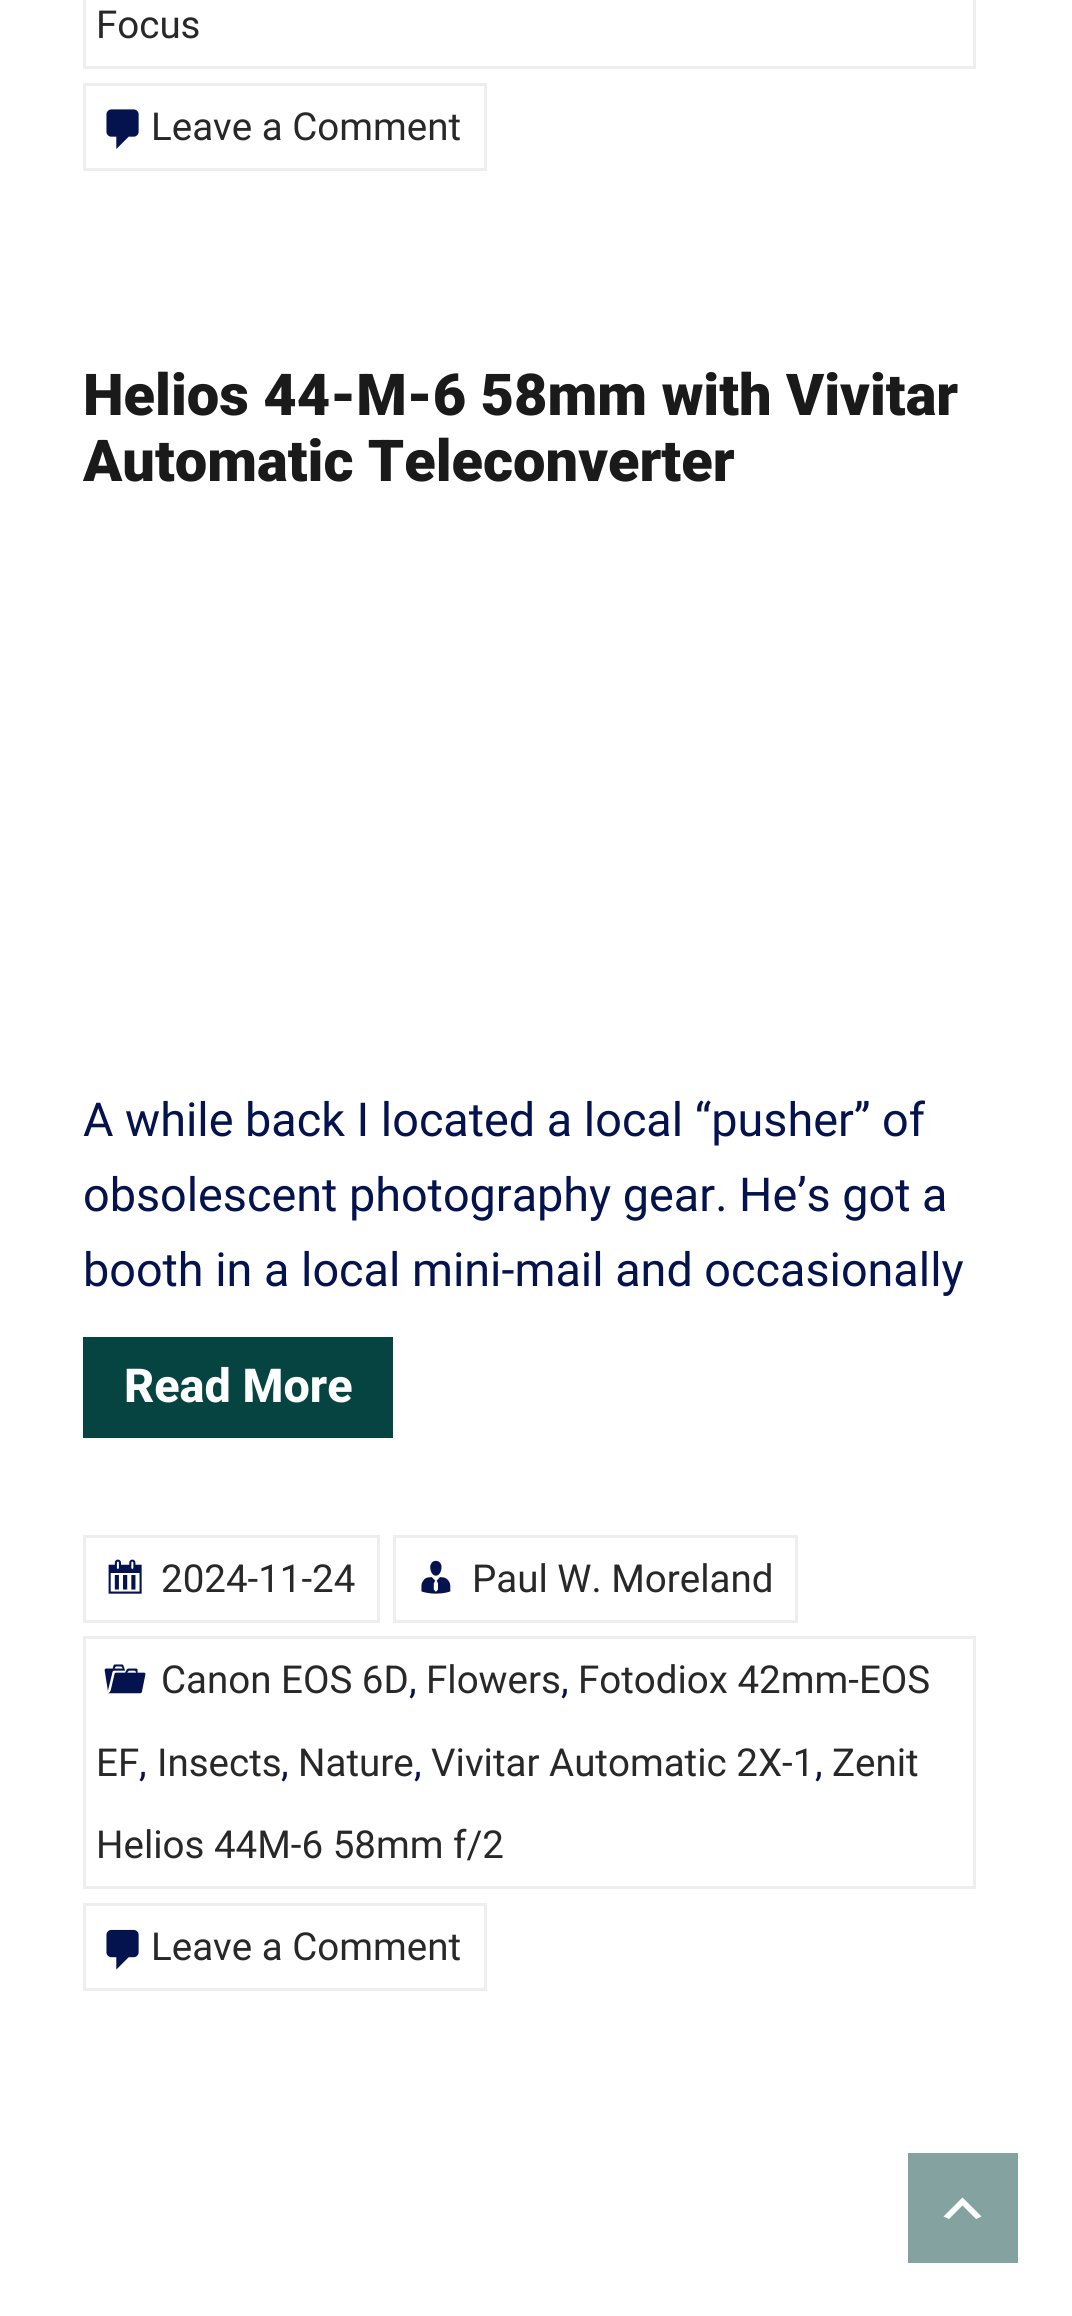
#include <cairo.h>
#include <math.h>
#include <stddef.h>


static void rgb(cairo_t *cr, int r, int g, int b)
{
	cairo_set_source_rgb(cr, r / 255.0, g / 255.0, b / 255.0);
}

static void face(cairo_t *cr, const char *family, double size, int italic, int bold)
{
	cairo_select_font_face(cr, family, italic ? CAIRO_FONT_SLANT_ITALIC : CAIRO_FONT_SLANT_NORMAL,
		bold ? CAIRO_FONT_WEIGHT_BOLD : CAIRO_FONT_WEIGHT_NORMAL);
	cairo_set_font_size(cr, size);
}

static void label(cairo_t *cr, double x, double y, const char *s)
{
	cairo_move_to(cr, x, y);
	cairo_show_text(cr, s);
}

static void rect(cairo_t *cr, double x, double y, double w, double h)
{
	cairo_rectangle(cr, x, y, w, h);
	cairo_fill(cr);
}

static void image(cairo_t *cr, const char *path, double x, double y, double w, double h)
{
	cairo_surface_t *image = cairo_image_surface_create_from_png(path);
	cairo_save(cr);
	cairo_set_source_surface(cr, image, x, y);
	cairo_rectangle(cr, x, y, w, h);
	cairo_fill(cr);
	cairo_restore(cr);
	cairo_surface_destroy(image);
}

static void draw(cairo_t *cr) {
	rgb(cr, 255, 255, 255);
	cairo_paint(cr);
	cairo_rectangle(cr, 84.5, -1.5, 890, 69);
	rgb(cr, 238, 238, 238);
	cairo_set_line_width(cr, 3);
	cairo_stroke(cr);
	face(cr, "Roboto", 38.5, 0, 0);
	rgb(cr, 40, 40, 40);
	label(cr, 96, 38, "Focus");
	cairo_rectangle(cr, 84.5, 84.5, 401, 85);
	rgb(cr, 238, 238, 238);
	cairo_stroke(cr);
	image(cr, "image0.png", 106, 109, 33, 40);
	rgb(cr, 40, 40, 40);
	label(cr, 151, 140, "Leave a Comment");
	face(cr, "Roboto Black", 57.75, 0, 0);
	rgb(cr, 26, 26, 26);
	label(cr, 83, 415, "Helios 44-M-6 58mm with Vivitar");
	label(cr, 83, 481, "Automatic Teleconverter");
	face(cr, "Roboto", 46.75, 0, 0);
	rgb(cr, 4, 19, 78);
	label(cr, 83, 1136, "A while back I located a local “pusher” of");
	label(cr, 83, 1211, "obsolescent photography gear. He’s got a");
	label(cr, 83, 1286, "booth in a local mini-mail and occasionally");
	rgb(cr, 6, 68, 65);
	rect(cr, 83, 1337, 310, 101);
	face(cr, "Roboto ExtraBold", 46.75, 0, 0);
	rgb(cr, 255, 255, 255);
	label(cr, 124, 1402, "Read More");
	cairo_rectangle(cr, 84.5, 1536.5, 294, 85);
	rgb(cr, 238, 238, 238);
	cairo_stroke(cr);
	image(cr, "image1.png", 108, 1559, 34, 35);
	face(cr, "Roboto", 38.5, 0, 0);
	rgb(cr, 40, 40, 40);
	label(cr, 161, 1592, "2024-11-24");
	cairo_rectangle(cr, 394.5, 1536.5, 402, 85);
	rgb(cr, 238, 238, 238);
	cairo_stroke(cr);
	image(cr, "image2.png", 421, 1560, 30, 34);
	rgb(cr, 40, 40, 40);
	label(cr, 472, 1592, "Paul W. Moreland");
	cairo_rectangle(cr, 84.5, 1637.5, 890, 250);
	rgb(cr, 238, 238, 238);
	cairo_stroke(cr);
	image(cr, "image3.png", 104, 1664, 42, 30);
	rgb(cr, 40, 40, 40);
	label(cr, 161, 1693, "Canon EOS 6D");
	rgb(cr, 4, 19, 78);
	label(cr, 409, 1693, ",");
	rgb(cr, 40, 40, 40);
	label(cr, 426, 1693, "Flowers");
	rgb(cr, 4, 19, 78);
	label(cr, 561, 1693, ",");
	rgb(cr, 40, 40, 40);
	label(cr, 578, 1693, "Fotodiox 42mm-EOS");
	label(cr, 96, 1776, "EF");
	rgb(cr, 4, 19, 78);
	label(cr, 139, 1776, ",");
	rgb(cr, 40, 40, 40);
	label(cr, 157, 1776, "Insects");
	rgb(cr, 4, 19, 78);
	label(cr, 281, 1776, ",");
	rgb(cr, 40, 40, 40);
	label(cr, 298, 1776, "Nature");
	rgb(cr, 4, 19, 78);
	label(cr, 414, 1776, ",");
	rgb(cr, 40, 40, 40);
	label(cr, 431, 1776, "Vivitar Automatic 2X-1");
	rgb(cr, 4, 19, 78);
	label(cr, 815, 1776, ",");
	rgb(cr, 40, 40, 40);
	label(cr, 832, 1776, "Zenit");
	label(cr, 96, 1858, "Helios 44M-6 58mm f/2");
	cairo_rectangle(cr, 84.5, 1904.5, 401, 85);
	rgb(cr, 238, 238, 238);
	cairo_stroke(cr);
	image(cr, "image4.png", 106, 1929, 33, 41);
	rgb(cr, 40, 40, 40);
	label(cr, 151, 1960, "Leave a Comment");
	rgb(cr, 131, 162, 160);
	rect(cr, 908, 2153, 110, 110);
	rgb(cr, 255, 255, 255);
	cairo_new_path(cr);
	cairo_move_to(cr, 976, 2219);
	cairo_line_to(cr, 962.5, 2205.5);
	cairo_line_to(cr, 949, 2219);
	cairo_line_to(cr, 943.5, 2216.5);
	cairo_line_to(cr, 962.5, 2197.5);
	cairo_line_to(cr, 981.5, 2216.5);
	cairo_close_path(cr);
	cairo_fill(cr);
}

int main(void) {
	cairo_surface_t *surface = cairo_image_surface_create(CAIRO_FORMAT_RGB24, 1072, 2316);
	cairo_t *cr = cairo_create(surface);
	cairo_font_options_t *options = cairo_font_options_create();
	cairo_font_options_set_hint_metrics(options, CAIRO_HINT_METRICS_OFF);
	cairo_font_options_set_hint_style(options, CAIRO_HINT_STYLE_NONE);
	cairo_set_font_options(cr, options);
	cairo_set_miter_limit(cr, 4);
	draw(cr);
	cairo_surface_write_to_png(surface, "render.png");
	cairo_font_options_destroy(options);
	cairo_destroy(cr);
	cairo_surface_destroy(surface);
	return 0;
}
